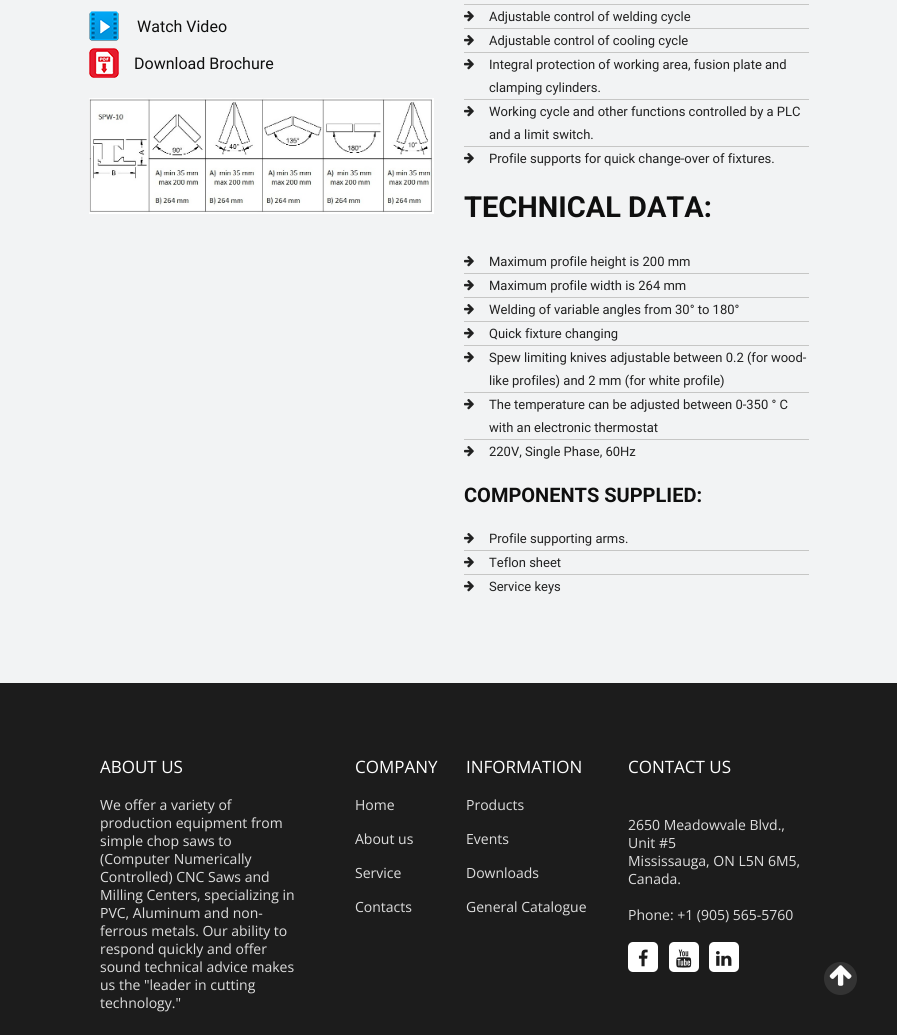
#include <cairo.h>
#include <math.h>
#include <stddef.h>


static void rgb(cairo_t *cr, int r, int g, int b)
{
	cairo_set_source_rgb(cr, r / 255.0, g / 255.0, b / 255.0);
}

static void face(cairo_t *cr, const char *family, double size, int italic, int bold)
{
	cairo_select_font_face(cr, family, italic ? CAIRO_FONT_SLANT_ITALIC : CAIRO_FONT_SLANT_NORMAL,
		bold ? CAIRO_FONT_WEIGHT_BOLD : CAIRO_FONT_WEIGHT_NORMAL);
	cairo_set_font_size(cr, size);
}

static void label(cairo_t *cr, double x, double y, const char *s)
{
	cairo_move_to(cr, x, y);
	cairo_show_text(cr, s);
}

static void rect(cairo_t *cr, double x, double y, double w, double h)
{
	cairo_rectangle(cr, x, y, w, h);
	cairo_fill(cr);
}

static void rrect(cairo_t *cr, double x, double y, double w, double h, double r)
{
	cairo_new_sub_path(cr);
	cairo_arc(cr, x + w - r, y + h - r, r, 0, M_PI / 2);
	cairo_arc(cr, x + r, y + h - r, r, M_PI / 2, M_PI);
	cairo_arc(cr, x + r, y + r, r, M_PI, 1.5 * M_PI);
	cairo_arc(cr, x + w - r, y + r, r, 1.5 * M_PI, 2 * M_PI);
	cairo_close_path(cr);
}

static void image(cairo_t *cr, const char *path, double x, double y, double w, double h)
{
	cairo_surface_t *image = cairo_image_surface_create_from_png(path);
	cairo_save(cr);
	cairo_set_source_surface(cr, image, x, y);
	cairo_rectangle(cr, x, y, w, h);
	cairo_fill(cr);
	cairo_restore(cr);
	cairo_surface_destroy(image);
}

static void draw(cairo_t *cr) {
	rgb(cr, 242, 243, 244);
	cairo_paint(cr);
	image(cr, "image0.png", 89, 11, 30, 30);
	face(cr, "Roboto", 16, 0, 0);
	rgb(cr, 15, 15, 15);
	label(cr, 137, 32, "Watch Video");
	image(cr, "image1.png", 89, 48, 30, 30);
	label(cr, 134, 69, "Download Brochure");
	image(cr, "image2.png", 89, 98, 345, 116);
	rgb(cr, 198, 198, 197);
	rect(cr, 464, 4, 345, 1);
	image(cr, "image3.png", 464, 11, 10, 11);
	face(cr, "Roboto", 13, 0, 0);
	rgb(cr, 33, 33, 33);
	label(cr, 489, 21, "Adjustable control of welding cycle");
	rgb(cr, 198, 198, 197);
	rect(cr, 464, 28, 345, 1);
	image(cr, "image3.png", 464, 35, 10, 11);
	rgb(cr, 33, 33, 33);
	label(cr, 489, 45, "Adjustable control of cooling cycle");
	rgb(cr, 198, 198, 197);
	rect(cr, 464, 52, 345, 1);
	image(cr, "image3.png", 464, 59, 10, 11);
	rgb(cr, 33, 33, 33);
	label(cr, 489, 69, "Integral protection of working area, fusion plate and");
	label(cr, 489, 92, "clamping cylinders.");
	rgb(cr, 198, 198, 197);
	rect(cr, 464, 99, 345, 1);
	image(cr, "image3.png", 464, 106, 10, 11);
	rgb(cr, 33, 33, 33);
	label(cr, 489, 116, "Working cycle and other functions controlled by a PLC");
	label(cr, 489, 139, "and a limit switch.");
	rgb(cr, 198, 198, 197);
	rect(cr, 464, 146, 345, 1);
	image(cr, "image3.png", 464, 153, 10, 11);
	rgb(cr, 33, 33, 33);
	label(cr, 489, 163, "Profile supports for quick change-over of fixtures.");
	face(cr, "Roboto", 29, 0, 1);
	rgb(cr, 15, 15, 15);
	label(cr, 464, 217, "TECHNICAL DATA:");
	image(cr, "image3.png", 464, 256, 10, 11);
	face(cr, "Roboto", 13, 0, 0);
	rgb(cr, 33, 33, 33);
	label(cr, 489, 266, "Maximum profile height is 200 mm");
	rgb(cr, 198, 198, 197);
	rect(cr, 464, 273, 345, 1);
	image(cr, "image3.png", 464, 280, 10, 11);
	rgb(cr, 33, 33, 33);
	label(cr, 489, 290, "Maximum profile width is 264 mm");
	rgb(cr, 198, 198, 197);
	rect(cr, 464, 297, 345, 1);
	image(cr, "image3.png", 464, 304, 10, 11);
	rgb(cr, 33, 33, 33);
	label(cr, 489, 314, "Welding of variable angles from 30° to 180°");
	rgb(cr, 198, 198, 197);
	rect(cr, 464, 321, 345, 1);
	image(cr, "image3.png", 464, 328, 10, 11);
	rgb(cr, 33, 33, 33);
	label(cr, 489, 338, "Quick fixture changing");
	rgb(cr, 198, 198, 197);
	rect(cr, 464, 345, 345, 1);
	image(cr, "image3.png", 464, 352, 10, 11);
	rgb(cr, 33, 33, 33);
	label(cr, 489, 362, "Spew limiting knives adjustable between 0.2 (for wood-");
	label(cr, 489, 385, "like profiles) and 2 mm (for white profile)");
	rgb(cr, 198, 198, 197);
	rect(cr, 464, 392, 345, 1);
	image(cr, "image3.png", 464, 399, 10, 11);
	rgb(cr, 33, 33, 33);
	label(cr, 489, 409, "The temperature can be adjusted between 0-350 ° C");
	label(cr, 489, 432, "with an electronic thermostat");
	rgb(cr, 198, 198, 197);
	rect(cr, 464, 439, 345, 1);
	image(cr, "image3.png", 464, 446, 10, 11);
	rgb(cr, 33, 33, 33);
	label(cr, 489, 456, "220V, Single Phase, 60Hz");
	face(cr, "Roboto", 20, 0, 1);
	rgb(cr, 15, 15, 15);
	label(cr, 464, 502, "COMPONENTS SUPPLIED:");
	image(cr, "image3.png", 464, 533, 10, 11);
	face(cr, "Roboto", 13, 0, 0);
	rgb(cr, 33, 33, 33);
	label(cr, 489, 543, "Profile supporting arms.");
	rgb(cr, 198, 198, 197);
	rect(cr, 464, 550, 345, 1);
	image(cr, "image3.png", 464, 557, 10, 11);
	rgb(cr, 33, 33, 33);
	label(cr, 489, 567, "Teflon sheet");
	rgb(cr, 198, 198, 197);
	rect(cr, 464, 574, 345, 1);
	image(cr, "image3.png", 464, 581, 10, 11);
	rgb(cr, 33, 33, 33);
	label(cr, 489, 591, "Service keys");
	rgb(cr, 28, 28, 28);
	rect(cr, 0, 683, 897, 352);
	face(cr, "Open Sans", 17, 0, 0);
	rgb(cr, 255, 255, 255);
	label(cr, 100, 773, "ABOUT US");
	face(cr, "Open Sans", 14, 0, 0);
	rgb(cr, 221, 221, 221);
	label(cr, 100, 810, "We offer a variety of");
	label(cr, 100, 828, "production equipment from");
	label(cr, 100, 846, "simple chop saws to");
	label(cr, 100, 864, "(Computer Numerically");
	label(cr, 100, 882, "Controlled) CNC Saws and");
	label(cr, 100, 900, "Milling Centers, specializing in");
	label(cr, 100, 918, "PVC, Aluminum and non-");
	label(cr, 100, 936, "ferrous metals. Our ability to");
	label(cr, 100, 954, "respond quickly and offer");
	label(cr, 100, 972, "sound technical advice makes");
	label(cr, 100, 990, "us the \"leader in cutting");
	label(cr, 100, 1008, "technology.\"");
	face(cr, "Open Sans", 17, 0, 0);
	rgb(cr, 255, 255, 255);
	label(cr, 355, 773, "COMPANY");
	face(cr, "Open Sans", 14, 0, 0);
	rgb(cr, 221, 221, 221);
	label(cr, 355, 810, "Home");
	label(cr, 355, 844, "About us");
	label(cr, 355, 878, "Service");
	label(cr, 355, 912, "Contacts");
	face(cr, "Open Sans", 17, 0, 0);
	rgb(cr, 255, 255, 255);
	label(cr, 466, 773, "INFORMATION");
	face(cr, "Open Sans", 14, 0, 0);
	rgb(cr, 221, 221, 221);
	label(cr, 466, 810, "Products");
	label(cr, 466, 844, "Events");
	label(cr, 466, 878, "Downloads");
	label(cr, 466, 912, "General Catalogue");
	face(cr, "Open Sans", 17, 0, 0);
	rgb(cr, 255, 255, 255);
	label(cr, 628, 773, "CONTACT US");
	face(cr, "Open Sans", 14, 0, 0);
	rgb(cr, 221, 221, 221);
	label(cr, 628, 830, "2650 Meadowvale Blvd.,");
	label(cr, 628, 848, "Unit #5");
	label(cr, 628, 866, "Mississauga, ON L5N 6M5,");
	label(cr, 628, 884, "Canada.");
	label(cr, 628, 920, "Phone: +1 (905) 565-5760");
	rgb(cr, 255, 255, 255);
	rrect(cr, 628, 942, 30, 30, 5);
	cairo_fill(cr);
	image(cr, "image4.png", 638, 949, 10, 18);
	rrect(cr, 669, 942, 30, 30, 5);
	cairo_fill(cr);
	image(cr, "image5.png", 676, 949, 16, 19);
	rrect(cr, 709, 942, 30, 30, 5);
	cairo_fill(cr);
	image(cr, "image6.png", 716, 951, 16, 15);
	rgb(cr, 51, 51, 51);
	cairo_arc(cr, 840.5, 978.5, 16.5, 0, 2 * M_PI);
	cairo_fill(cr);
	image(cr, "image7.png", 829, 965, 23, 21);
}

int main(void) {
	cairo_surface_t *surface = cairo_image_surface_create(CAIRO_FORMAT_RGB24, 897, 1035);
	cairo_t *cr = cairo_create(surface);
	cairo_font_options_t *options = cairo_font_options_create();
	cairo_font_options_set_hint_metrics(options, CAIRO_HINT_METRICS_OFF);
	cairo_font_options_set_hint_style(options, CAIRO_HINT_STYLE_NONE);
	cairo_set_font_options(cr, options);
	cairo_set_miter_limit(cr, 4);
	draw(cr);
	cairo_surface_write_to_png(surface, "render.png");
	cairo_font_options_destroy(options);
	cairo_destroy(cr);
	cairo_surface_destroy(surface);
	return 0;
}
